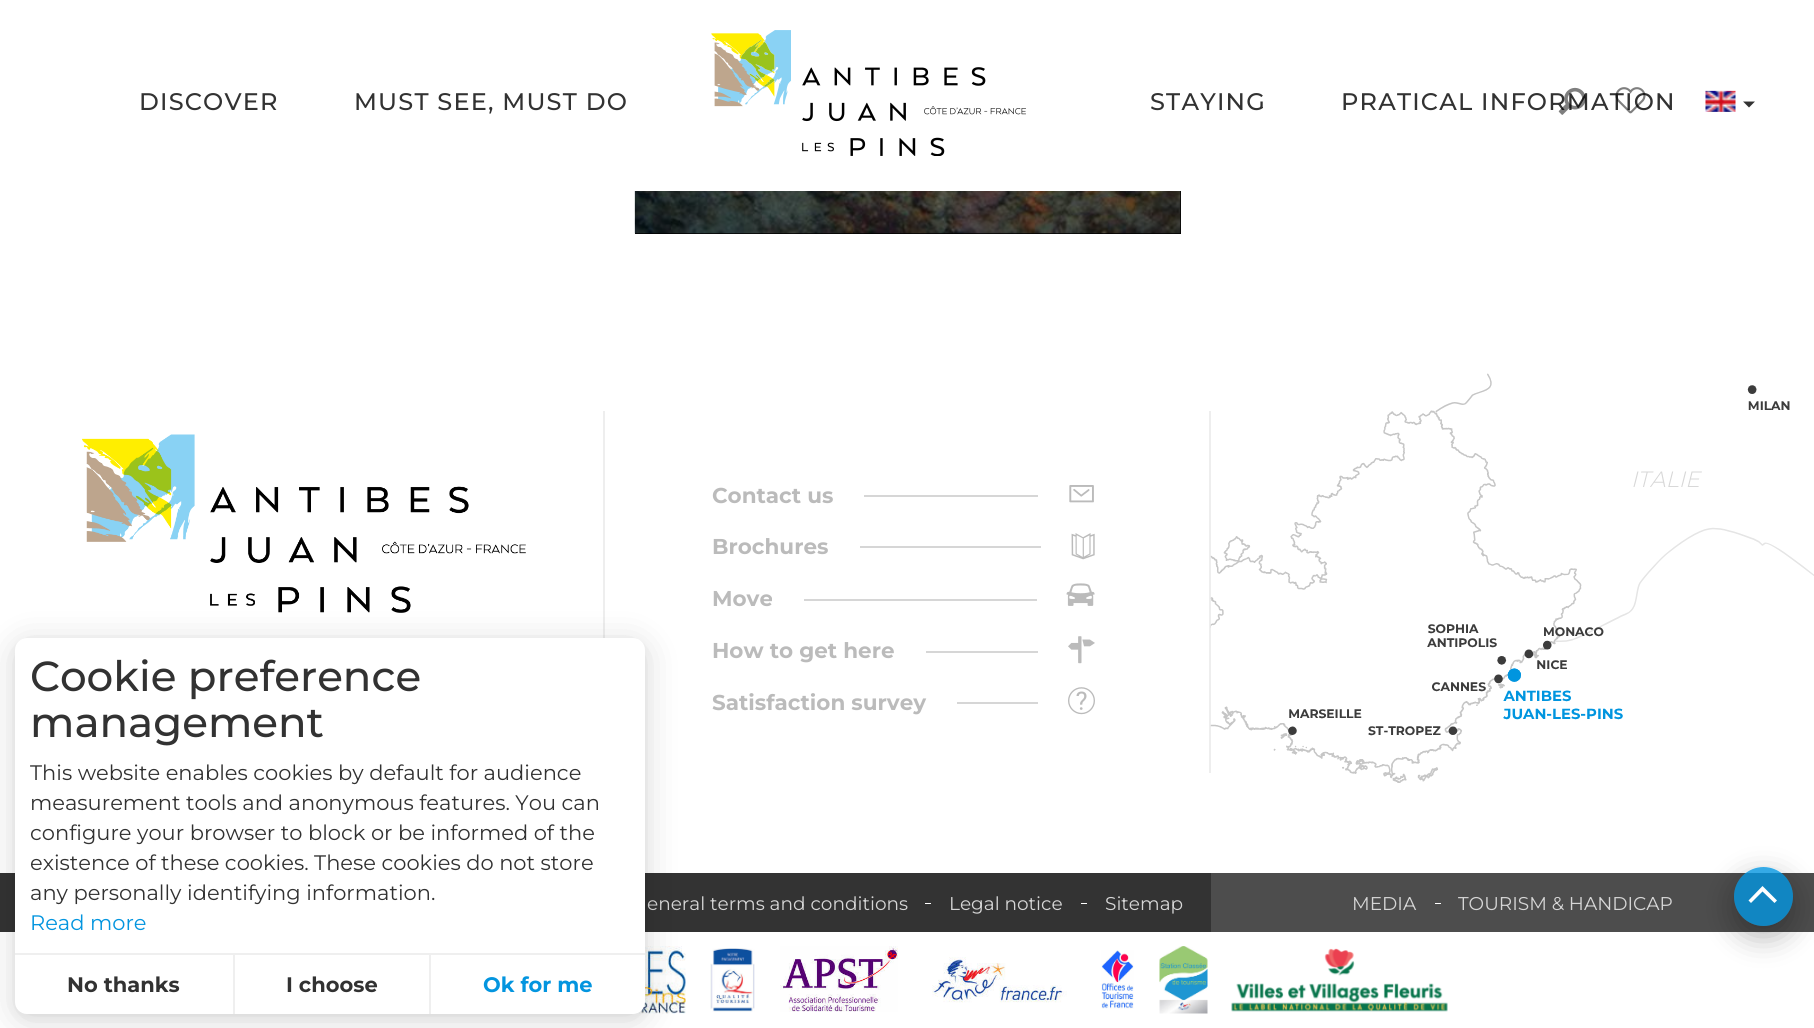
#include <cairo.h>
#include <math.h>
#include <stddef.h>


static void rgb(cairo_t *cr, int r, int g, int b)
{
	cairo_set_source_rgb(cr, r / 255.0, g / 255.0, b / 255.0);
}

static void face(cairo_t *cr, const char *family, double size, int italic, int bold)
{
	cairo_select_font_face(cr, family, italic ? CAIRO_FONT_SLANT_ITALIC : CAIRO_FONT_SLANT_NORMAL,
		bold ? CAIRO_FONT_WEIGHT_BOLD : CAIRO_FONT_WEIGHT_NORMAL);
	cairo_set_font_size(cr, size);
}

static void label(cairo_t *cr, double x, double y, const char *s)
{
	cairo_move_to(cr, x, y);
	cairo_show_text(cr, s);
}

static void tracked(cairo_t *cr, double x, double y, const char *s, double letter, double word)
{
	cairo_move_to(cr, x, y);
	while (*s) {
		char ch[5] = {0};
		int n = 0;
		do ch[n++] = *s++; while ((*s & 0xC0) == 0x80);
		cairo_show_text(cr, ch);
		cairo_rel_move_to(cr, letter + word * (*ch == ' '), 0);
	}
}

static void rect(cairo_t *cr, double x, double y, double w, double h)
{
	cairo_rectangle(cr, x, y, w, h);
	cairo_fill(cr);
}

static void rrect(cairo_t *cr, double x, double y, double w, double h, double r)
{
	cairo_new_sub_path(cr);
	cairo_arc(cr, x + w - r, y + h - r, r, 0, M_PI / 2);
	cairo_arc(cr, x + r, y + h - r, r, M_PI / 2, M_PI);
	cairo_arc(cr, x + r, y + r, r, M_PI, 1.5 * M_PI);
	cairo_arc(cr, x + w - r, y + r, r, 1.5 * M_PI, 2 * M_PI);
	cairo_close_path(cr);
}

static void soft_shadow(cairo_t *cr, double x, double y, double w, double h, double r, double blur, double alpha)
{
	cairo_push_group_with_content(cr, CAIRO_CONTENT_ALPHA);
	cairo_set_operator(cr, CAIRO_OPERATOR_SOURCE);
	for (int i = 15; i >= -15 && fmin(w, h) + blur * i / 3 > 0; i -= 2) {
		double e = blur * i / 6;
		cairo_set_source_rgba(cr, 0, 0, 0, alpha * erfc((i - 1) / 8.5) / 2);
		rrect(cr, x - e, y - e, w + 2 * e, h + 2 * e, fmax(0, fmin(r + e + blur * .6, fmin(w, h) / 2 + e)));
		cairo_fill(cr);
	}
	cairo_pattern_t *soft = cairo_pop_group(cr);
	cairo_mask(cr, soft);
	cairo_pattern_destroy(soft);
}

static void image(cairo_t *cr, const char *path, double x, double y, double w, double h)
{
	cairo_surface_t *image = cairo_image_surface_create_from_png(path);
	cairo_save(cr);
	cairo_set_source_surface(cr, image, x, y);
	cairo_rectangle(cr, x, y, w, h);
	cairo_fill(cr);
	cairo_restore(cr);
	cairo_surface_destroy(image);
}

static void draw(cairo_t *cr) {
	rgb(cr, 255, 255, 255);
	cairo_paint(cr);
	face(cr, "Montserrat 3 Thin", 24, 0, 0);
	rgb(cr, 50, 50, 50);
	tracked(cr, 1341, 110, "PRATICAL INFORMATION", 1.2, 0);
	image(cr, "image0.png", 1558, 87, 28, 28);
	image(cr, "image1.png", 1615, 87, 31, 27);
	image(cr, "image2.png", 1705, 90, 31, 22);
	rgb(cr, 51, 51, 51);
	cairo_new_path(cr);
	cairo_move_to(cr, 1743, 101.5);
	cairo_line_to(cr, 1755, 101.5);
	cairo_line_to(cr, 1749, 107.5);
	cairo_close_path(cr);
	cairo_fill(cr);
	rgb(cr, 50, 50, 50);
	tracked(cr, 139, 110, "DISCOVER", 1.2, 0);
	tracked(cr, 354, 110, "MUST SEE, MUST DO", 1.2, 0);
	image(cr, "image3.png", 711, 30, 315, 126);
	tracked(cr, 1150, 110, "STAYING", 1.2, 0);
	rgb(cr, 0, 0, 0);
	rect(cr, 635, 191, 546, 43);
	image(cr, "image4.png", 634, 191, 547, 43);
	image(cr, "image5.png", 82, 434, 444, 179);
	rgb(cr, 238, 238, 238);
	rect(cr, 603, 411, 2, 227);
	face(cr, "Montserrat Thin", 21.5, 0, 0);
	rgb(cr, 187, 187, 187);
	label(cr, 712, 503, "Contact us");
	rgb(cr, 214, 214, 214);
	rect(cr, 864, 495, 174, 2);
	image(cr, "image6.png", 1069, 485, 25, 18);
	rgb(cr, 187, 187, 187);
	label(cr, 712, 554, "Brochures");
	rgb(cr, 214, 214, 214);
	rect(cr, 860, 546, 181, 2);
	image(cr, "image7.png", 1071, 533, 24, 27);
	rgb(cr, 187, 187, 187);
	label(cr, 712, 606, "Move");
	rgb(cr, 214, 214, 214);
	rect(cr, 804, 599, 233, 2);
	image(cr, "image8.png", 1066, 583, 29, 23);
	rgb(cr, 187, 187, 187);
	label(cr, 712, 658, "How to get here");
	rgb(cr, 214, 214, 214);
	rect(cr, 926, 651, 112, 2);
	image(cr, "image9.png", 1068, 636, 27, 28);
	rgb(cr, 187, 187, 187);
	label(cr, 712, 710, "Satisfaction survey");
	rgb(cr, 214, 214, 214);
	rect(cr, 957, 702, 81, 2);
	image(cr, "image10.png", 1068, 687, 27, 28);
	rgb(cr, 238, 238, 238);
	rect(cr, 1209, 411, 2, 362);
	image(cr, "image11.png", 1210, 373, 604, 410);
	rgb(cr, 51, 51, 51);
	rect(cr, 0, 873, 1211, 59);
	face(cr, "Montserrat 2 Thin", 18.5, 0, 0);
	rgb(cr, 214, 214, 214);
	label(cr, 647, 910, "eneral terms and conditions");
	rgb(cr, 255, 255, 255);
	rect(cr, 925, 903, 6, 1);
	rgb(cr, 214, 214, 214);
	label(cr, 949, 910, "Legal notice");
	rgb(cr, 255, 255, 255);
	rect(cr, 1081, 903, 6, 1);
	rgb(cr, 214, 214, 214);
	label(cr, 1105, 910, "Sitemap");
	rgb(cr, 77, 77, 77);
	rect(cr, 1211, 873, 603, 59);
	rgb(cr, 214, 214, 214);
	label(cr, 1352, 910, "MEDIA");
	rgb(cr, 255, 255, 255);
	rect(cr, 1435, 903, 6, 1);
	rgb(cr, 214, 214, 214);
	label(cr, 1458, 910, "TOURISM & HANDICAP");
	image(cr, "image12.png", 633, 946, 53, 68);
	image(cr, "image13.png", 710, 948, 45, 64);
	image(cr, "image14.png", 780, 946, 118, 66);
	image(cr, "image15.png", 932, 957, 135, 46);
	image(cr, "image16.png", 1101, 950, 33, 59);
	image(cr, "image17.png", 1159, 946, 49, 68);
	image(cr, "image18.png", 1231, 948, 217, 64);
	cairo_save(cr);
	cairo_set_fill_rule(cr, CAIRO_FILL_RULE_EVEN_ODD);
	cairo_new_path(cr);
	cairo_move_to(cr, 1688, 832);
	cairo_line_to(cr, 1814, 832);
	cairo_line_to(cr, 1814, 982);
	cairo_line_to(cr, 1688, 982);
	cairo_close_path(cr);
	cairo_move_to(cr, 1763.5, 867);
	cairo_curve_to(cr, 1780, 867, 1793, 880, 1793, 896.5);
	cairo_curve_to(cr, 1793, 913, 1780, 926, 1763.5, 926);
	cairo_curve_to(cr, 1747, 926, 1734, 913, 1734, 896.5);
	cairo_curve_to(cr, 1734, 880, 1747, 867, 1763.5, 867);
	cairo_close_path(cr);
	cairo_clip(cr);
	rgb(cr, 0, 0, 0);
	soft_shadow(cr, 1734, 878, 59, 58, 29, 15, 0.3);
	cairo_restore(cr);
	cairo_set_source_rgba(cr, 0.012, 0.584, 0.875, 0.8);
	cairo_arc(cr, 1763.5, 896.5, 29.5, 0, 2 * M_PI);
	cairo_fill(cr);
	rgb(cr, 255, 255, 255);
	cairo_new_path(cr);
	cairo_move_to(cr, 1774.5, 903);
	cairo_line_to(cr, 1777, 900.5);
	cairo_line_to(cr, 1762.5, 886);
	cairo_line_to(cr, 1748.5, 900.5);
	cairo_line_to(cr, 1751, 903);
	cairo_line_to(cr, 1762.5, 891.5);
	cairo_close_path(cr);
	cairo_fill(cr);
	rgb(cr, 0, 0, 0);
	soft_shadow(cr, 15, 641, 630, 376, 12, 4.5, 0.05);
	soft_shadow(cr, 15, 644, 630, 376, 12, 18, 0.15);
	rgb(cr, 255, 255, 255);
	rrect(cr, 15, 638, 630, 376, 12);
	cairo_fill(cr);
	face(cr, "Montserrat 3 Thin", 42, 0, 0);
	rgb(cr, 50, 50, 50);
	label(cr, 30, 691, "Cookie preference");
	label(cr, 30, 737, "management");
	face(cr, "Montserrat 2 Thin", 21, 0, 0);
	label(cr, 30, 780, "This website enables cookies by default for audience");
	label(cr, 30, 810, "measurement tools and anonymous features. You can");
	label(cr, 30, 840, "configure your browser to block or be informed of the");
	label(cr, 30, 870, "existence of these cookies. These cookies do not store");
	label(cr, 30, 900, "any personally identifying information.");
	rgb(cr, 3, 149, 223);
	label(cr, 30, 930, "Read more");
	rgb(cr, 239, 239, 239);
	rect(cr, 15, 953, 630, 2);
	rect(cr, 233, 954, 2, 60);
	face(cr, "Montserrat Thin", 21, 0, 0);
	rgb(cr, 50, 50, 50);
	label(cr, 67, 992, "No thanks");
	rgb(cr, 239, 239, 239);
	rect(cr, 429, 954, 2, 60);
	rgb(cr, 50, 50, 50);
	label(cr, 286, 992, "I choose");
	rgb(cr, 3, 149, 223);
	label(cr, 483, 992, "Ok for me");
}

int main(void) {
	cairo_surface_t *surface = cairo_image_surface_create(CAIRO_FORMAT_RGB24, 1814, 1028);
	cairo_t *cr = cairo_create(surface);
	cairo_font_options_t *options = cairo_font_options_create();
	cairo_font_options_set_hint_metrics(options, CAIRO_HINT_METRICS_OFF);
	cairo_font_options_set_hint_style(options, CAIRO_HINT_STYLE_NONE);
	cairo_set_font_options(cr, options);
	cairo_set_miter_limit(cr, 4);
	draw(cr);
	cairo_surface_write_to_png(surface, "render.png");
	cairo_font_options_destroy(options);
	cairo_destroy(cr);
	cairo_surface_destroy(surface);
	return 0;
}
